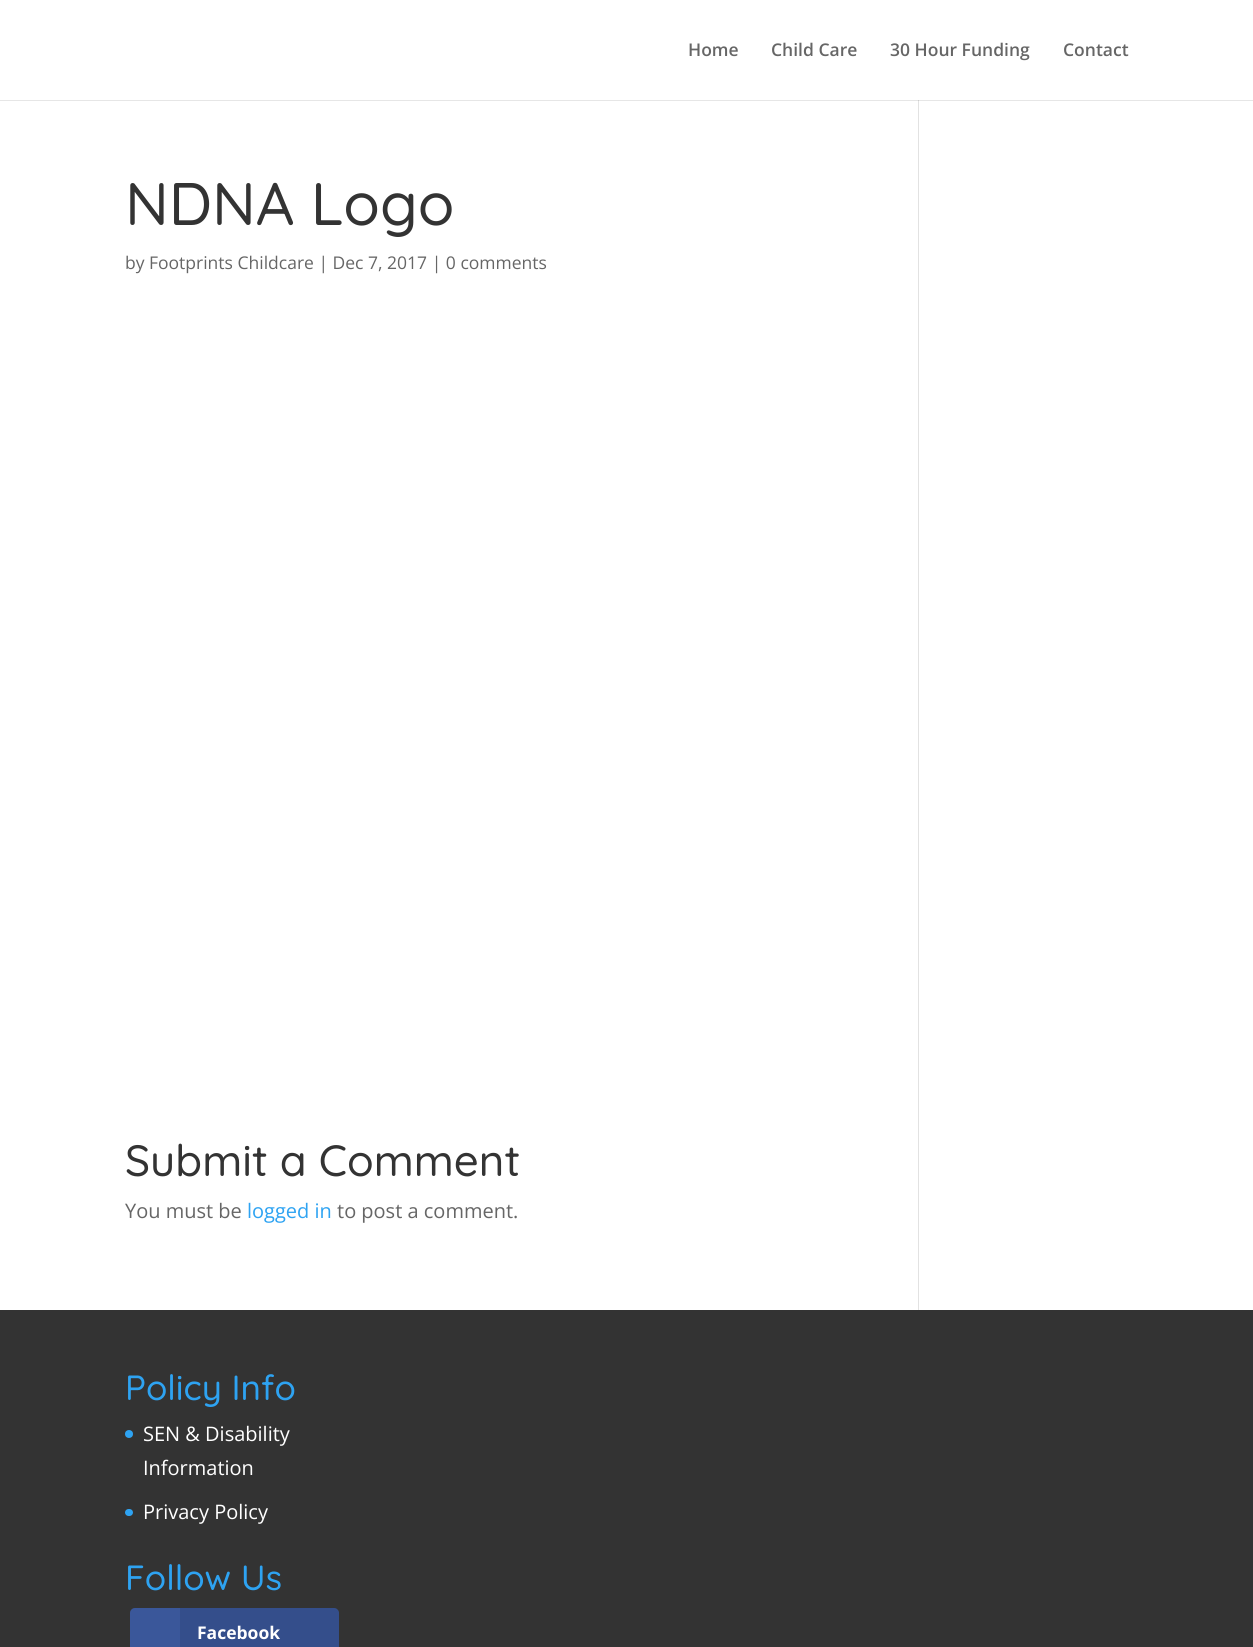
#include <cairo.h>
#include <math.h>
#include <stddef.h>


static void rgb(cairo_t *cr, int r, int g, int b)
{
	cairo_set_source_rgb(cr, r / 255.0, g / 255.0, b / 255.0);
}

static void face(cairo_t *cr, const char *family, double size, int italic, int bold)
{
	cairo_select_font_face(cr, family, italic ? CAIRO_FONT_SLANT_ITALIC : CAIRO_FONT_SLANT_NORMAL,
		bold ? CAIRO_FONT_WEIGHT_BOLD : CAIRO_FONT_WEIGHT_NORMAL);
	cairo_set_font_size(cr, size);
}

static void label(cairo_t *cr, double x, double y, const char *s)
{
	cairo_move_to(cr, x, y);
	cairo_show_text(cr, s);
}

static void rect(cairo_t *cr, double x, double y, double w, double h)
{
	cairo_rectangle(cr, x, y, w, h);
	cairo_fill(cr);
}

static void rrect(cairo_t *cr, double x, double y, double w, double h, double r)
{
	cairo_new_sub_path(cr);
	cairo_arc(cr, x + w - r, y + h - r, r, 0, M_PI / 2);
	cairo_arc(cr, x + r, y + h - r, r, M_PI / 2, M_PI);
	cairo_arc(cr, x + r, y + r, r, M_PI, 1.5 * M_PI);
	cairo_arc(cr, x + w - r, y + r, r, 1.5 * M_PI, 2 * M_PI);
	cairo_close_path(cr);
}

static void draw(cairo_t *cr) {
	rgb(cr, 255, 255, 255);
	cairo_paint(cr);
	rgb(cr, 226, 226, 226);
	rect(cr, 918, 100, 1, 1210);
	cairo_set_source_rgba(cr, 0, 0, 0, 0.1);
	cairo_new_path(cr);
	cairo_move_to(cr, 0, 100);
	cairo_line_to(cr, 0, 101);
	cairo_line_to(cr, 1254, 101);
	cairo_line_to(cr, 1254, 1);
	cairo_line_to(cr, 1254, 100);
	cairo_close_path(cr);
	cairo_fill(cr);
	face(cr, "Open Sans SemiBold", 17.5, 0, 0);
	rgb(cr, 102, 102, 102);
	label(cr, 688, 56, "Home");
	label(cr, 771, 56, "Child Care");
	label(cr, 890, 56, "30 Hour Funding");
	label(cr, 1063, 56, "Contact");
	face(cr, "Quicksand Medium", 60, 0, 0);
	rgb(cr, 51, 51, 51);
	label(cr, 125, 225, "NDNA Logo");
	face(cr, "Open Sans", 17.5, 0, 0);
	rgb(cr, 102, 102, 102);
	label(cr, 125, 269, "by Footprints Childcare | Dec 7, 2017 | 0 comments");
	face(cr, "Quicksand Medium", 43.75, 0, 0);
	rgb(cr, 51, 51, 51);
	label(cr, 125, 1176, "Submit a Comment");
	face(cr, "Open Sans", 20, 0, 0);
	rgb(cr, 102, 102, 102);
	label(cr, 125, 1218, "You must be");
	rgb(cr, 46, 163, 242);
	label(cr, 247, 1218, "logged in");
	rgb(cr, 102, 102, 102);
	label(cr, 337, 1218, "to post a comment.");
	rgb(cr, 51, 51, 51);
	rect(cr, 0, 1310, 1253, 337);
	face(cr, "Quicksand Medium", 35, 0, 0);
	rgb(cr, 46, 163, 242);
	label(cr, 125, 1400, "Policy Info");
	cairo_new_path(cr);
	cairo_arc(cr, 129, 1434, 4, 0, 2 * M_PI);
	cairo_fill(cr);
	face(cr, "Open Sans", 20, 0, 0);
	rgb(cr, 255, 255, 255);
	label(cr, 143, 1441, "SEN & Disability");
	label(cr, 143, 1475, "Information");
	rgb(cr, 46, 163, 242);
	rrect(cr, 125, 1509, 8, 7, 3.5);
	cairo_fill(cr);
	rgb(cr, 255, 255, 255);
	label(cr, 143, 1519, "Privacy Policy");
	face(cr, "Quicksand Medium", 35, 0, 0);
	rgb(cr, 46, 163, 242);
	label(cr, 125, 1590, "Follow Us");
	rgb(cr, 58, 87, 154);
	rrect(cr, 130, 1608, 209, 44, 5);
	cairo_fill(cr);
	cairo_set_source_rgba(cr, 0, 0, 0, 0.1);
	cairo_new_path(cr);
	cairo_move_to(cr, 180, 1608);
	cairo_line_to(cr, 334, 1608);
	cairo_curve_to(cr, 337, 1608, 339, 1610, 339, 1613);
	cairo_line_to(cr, 339, 1647);
	cairo_curve_to(cr, 339, 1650, 337, 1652, 334, 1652);
	cairo_line_to(cr, 180, 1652);
	cairo_close_path(cr);
	cairo_fill(cr);
	face(cr, "Open Sans", 17.5, 0, 1);
	rgb(cr, 255, 255, 255);
	label(cr, 197, 1639, "Facebook");
}

int main(void) {
	cairo_surface_t *surface = cairo_image_surface_create(CAIRO_FORMAT_RGB24, 1253, 1647);
	cairo_t *cr = cairo_create(surface);
	cairo_font_options_t *options = cairo_font_options_create();
	cairo_font_options_set_hint_metrics(options, CAIRO_HINT_METRICS_OFF);
	cairo_font_options_set_hint_style(options, CAIRO_HINT_STYLE_NONE);
	cairo_set_font_options(cr, options);
	cairo_set_miter_limit(cr, 4);
	draw(cr);
	cairo_surface_write_to_png(surface, "render.png");
	cairo_font_options_destroy(options);
	cairo_destroy(cr);
	cairo_surface_destroy(surface);
	return 0;
}
